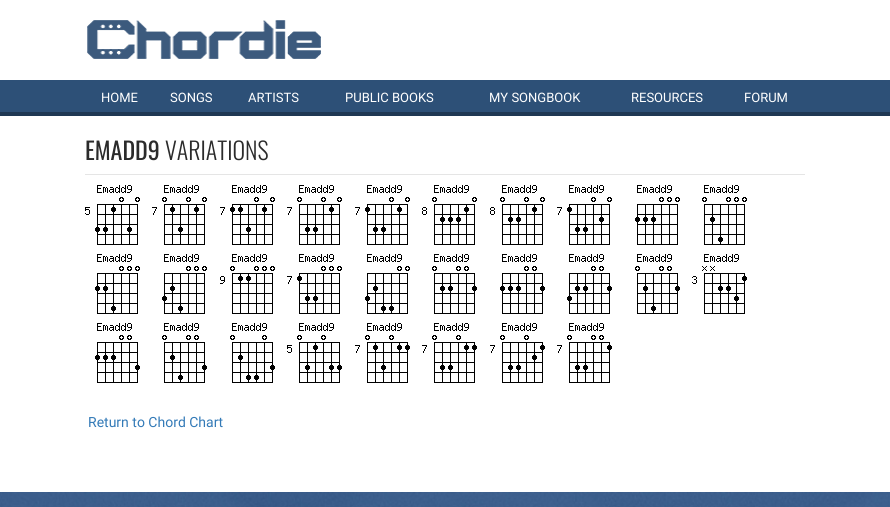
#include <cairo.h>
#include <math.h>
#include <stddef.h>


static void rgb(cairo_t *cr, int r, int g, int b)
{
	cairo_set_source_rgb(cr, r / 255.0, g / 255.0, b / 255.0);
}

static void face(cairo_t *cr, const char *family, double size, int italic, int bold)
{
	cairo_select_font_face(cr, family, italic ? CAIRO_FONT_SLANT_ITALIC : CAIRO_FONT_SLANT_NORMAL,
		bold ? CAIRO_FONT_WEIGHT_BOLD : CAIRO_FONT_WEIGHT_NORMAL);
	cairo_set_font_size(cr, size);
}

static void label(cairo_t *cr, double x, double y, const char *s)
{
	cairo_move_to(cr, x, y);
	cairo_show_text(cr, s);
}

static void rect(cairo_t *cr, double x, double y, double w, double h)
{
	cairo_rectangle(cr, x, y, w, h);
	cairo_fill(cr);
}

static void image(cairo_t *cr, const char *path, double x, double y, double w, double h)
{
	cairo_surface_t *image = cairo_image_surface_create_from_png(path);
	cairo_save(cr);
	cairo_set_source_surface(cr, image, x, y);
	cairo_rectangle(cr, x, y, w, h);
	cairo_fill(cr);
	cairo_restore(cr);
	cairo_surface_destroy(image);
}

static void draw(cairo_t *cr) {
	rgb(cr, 255, 255, 255);
	cairo_paint(cr);
	image(cr, "image0.png", 87, 20, 234, 39);
	rgb(cr, 45, 80, 119);
	rect(cr, 0, 80, 890, 32);
	rgb(cr, 31, 56, 83);
	rect(cr, 0, 112, 890, 4);
	face(cr, "Roboto", 13, 0, 0);
	rgb(cr, 255, 255, 255);
	label(cr, 101, 102, "HOME");
	label(cr, 170, 102, "SONGS");
	label(cr, 248, 102, "ARTISTS");
	label(cr, 345, 102, "PUBLIC BOOKS");
	label(cr, 489, 102, "MY SONGBOOK");
	label(cr, 631, 102, "RESOURCES");
	label(cr, 744, 102, "FORUM");
	rgb(cr, 229, 229, 229);
	rect(cr, 85, 174, 720, 1);
	face(cr, "Oswald", 24, 0, 0);
	rgb(cr, 43, 43, 43);
	label(cr, 85, 160, "EMADD9");
	face(cr, "Oswald Light", 24, 0, 0);
	label(cr, 165, 160, "VARIATIONS");
	image(cr, "image1.png", 85, 185, 55, 60);
	image(cr, "image2.png", 152, 185, 55, 60);
	image(cr, "image3.png", 220, 185, 55, 60);
	image(cr, "image4.png", 287, 185, 55, 60);
	image(cr, "image5.png", 355, 185, 55, 60);
	image(cr, "image6.png", 422, 185, 55, 60);
	image(cr, "image7.png", 490, 185, 55, 60);
	image(cr, "image8.png", 557, 185, 55, 60);
	image(cr, "image9.png", 635, 185, 45, 60);
	image(cr, "image10.png", 702, 185, 45, 60);
	image(cr, "image11.png", 95, 254, 45, 60);
	image(cr, "image12.png", 162, 254, 45, 60);
	image(cr, "image13.png", 220, 254, 55, 60);
	image(cr, "image14.png", 287, 254, 55, 60);
	image(cr, "image15.png", 365, 254, 45, 60);
	image(cr, "image16.png", 432, 254, 45, 60);
	image(cr, "image17.png", 500, 254, 45, 60);
	image(cr, "image18.png", 567, 254, 45, 60);
	image(cr, "image19.png", 635, 254, 45, 60);
	image(cr, "image20.png", 692, 254, 55, 60);
	image(cr, "image21.png", 95, 323, 45, 60);
	image(cr, "image22.png", 162, 323, 45, 60);
	image(cr, "image23.png", 230, 323, 45, 60);
	image(cr, "image24.png", 287, 323, 55, 60);
	image(cr, "image25.png", 355, 323, 55, 60);
	image(cr, "image26.png", 422, 323, 55, 60);
	image(cr, "image27.png", 490, 323, 55, 60);
	image(cr, "image28.png", 557, 323, 55, 60);
	face(cr, "Roboto", 14, 0, 0);
	rgb(cr, 51, 122, 183);
	label(cr, 88, 427, "Return to Chord Chart");
	image(cr, "image29.png", 0, 492, 890, 15);
}

int main(void) {
	cairo_surface_t *surface = cairo_image_surface_create(CAIRO_FORMAT_RGB24, 890, 507);
	cairo_t *cr = cairo_create(surface);
	cairo_font_options_t *options = cairo_font_options_create();
	cairo_font_options_set_hint_metrics(options, CAIRO_HINT_METRICS_OFF);
	cairo_font_options_set_hint_style(options, CAIRO_HINT_STYLE_NONE);
	cairo_set_font_options(cr, options);
	cairo_set_miter_limit(cr, 4);
	draw(cr);
	cairo_surface_write_to_png(surface, "render.png");
	cairo_font_options_destroy(options);
	cairo_destroy(cr);
	cairo_surface_destroy(surface);
	return 0;
}
